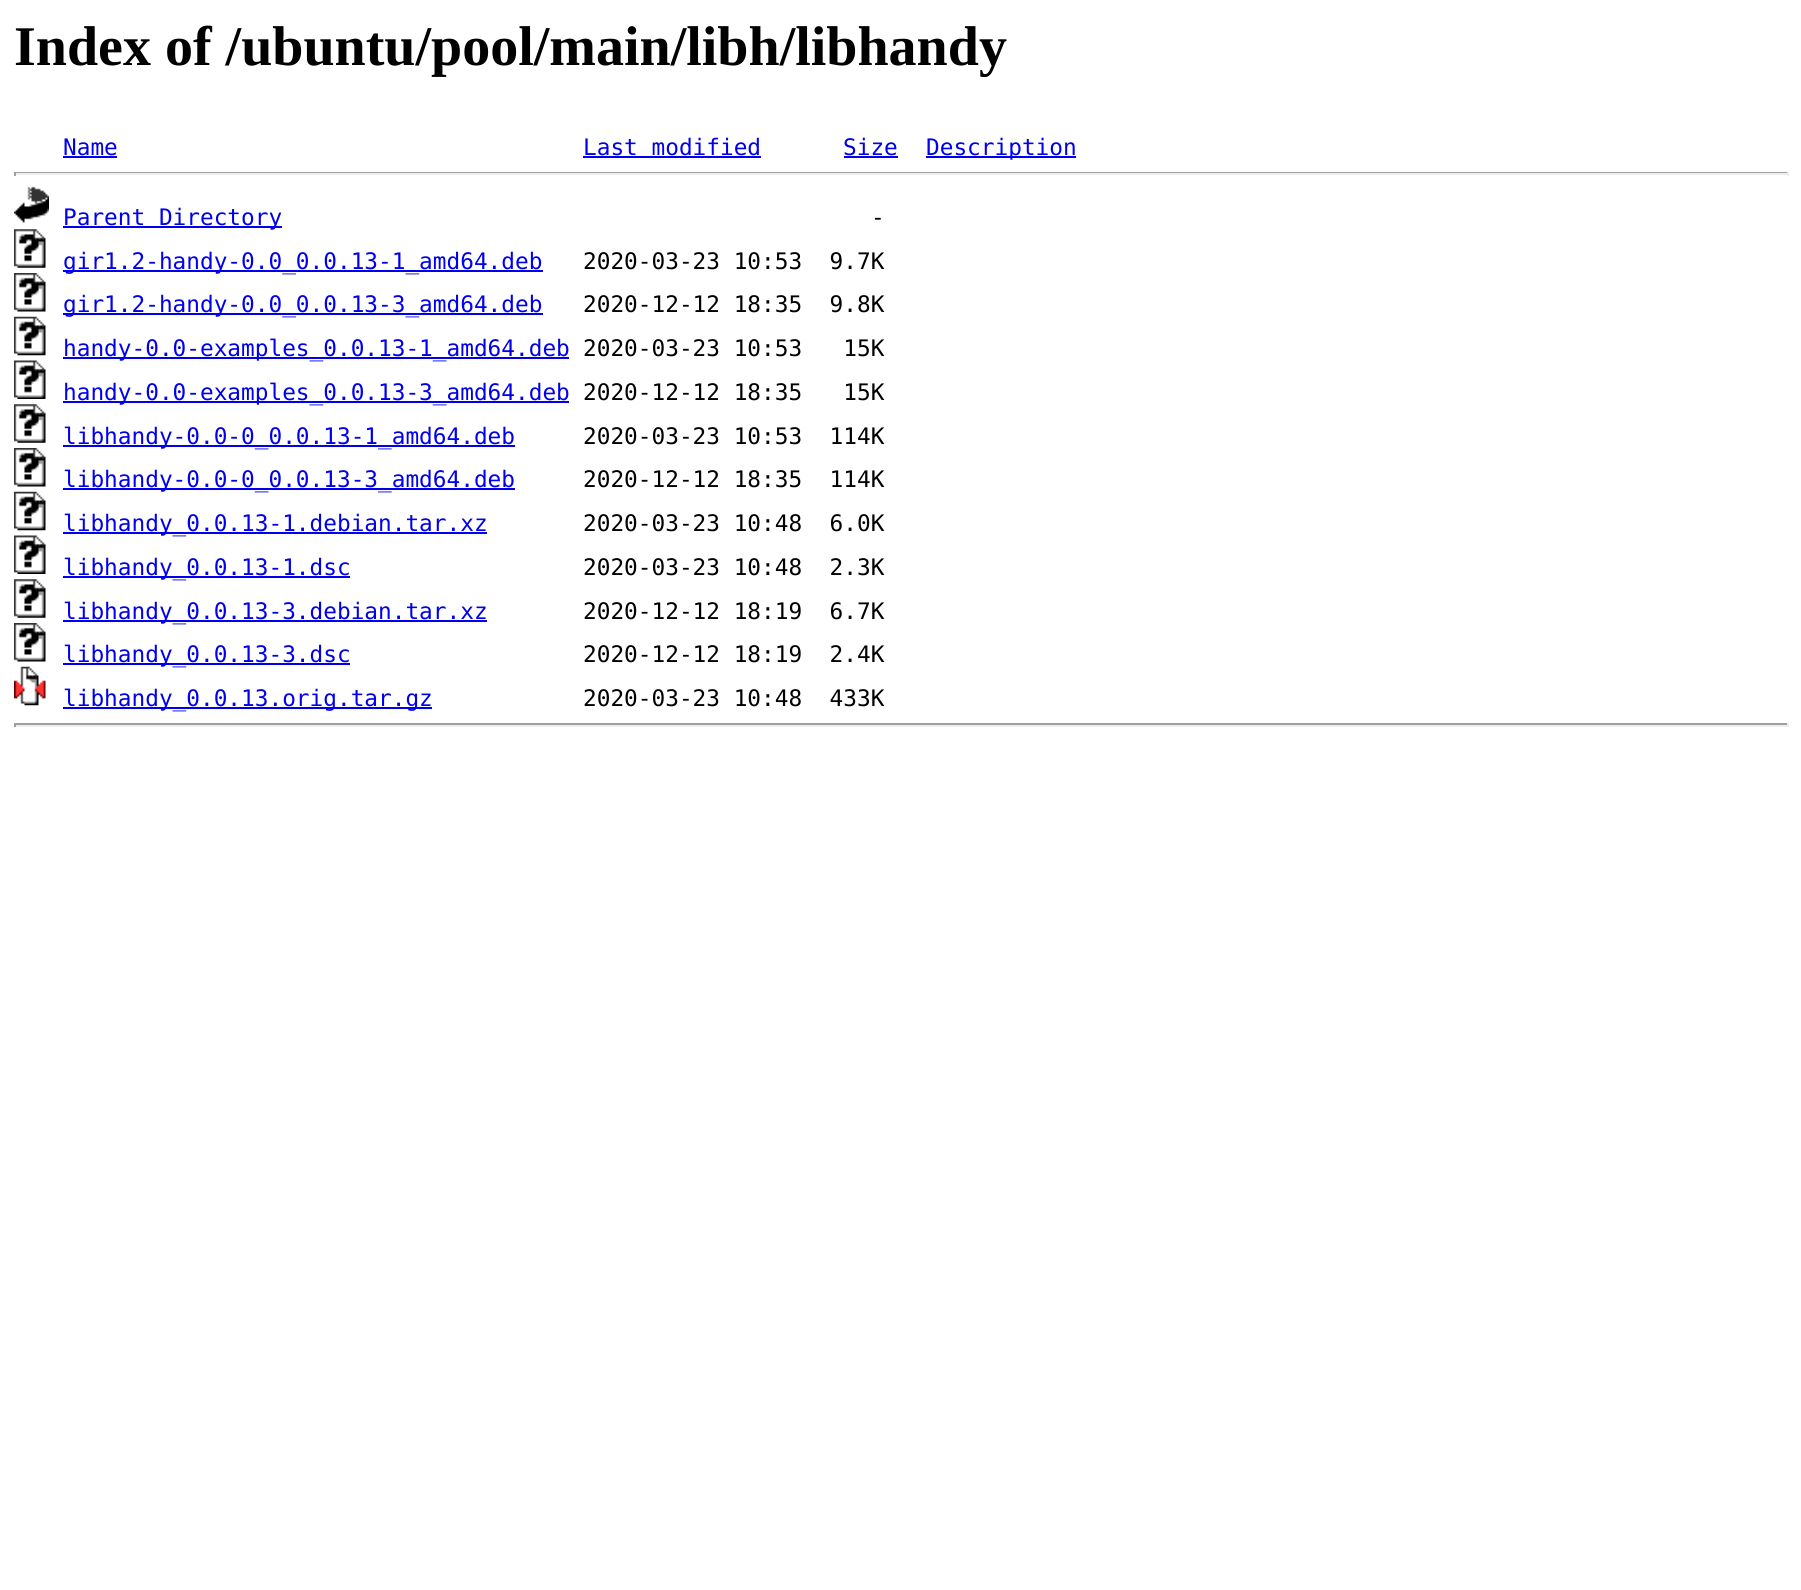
#include <cairo.h>
#include <math.h>
#include <stddef.h>


static void rgb(cairo_t *cr, int r, int g, int b)
{
	cairo_set_source_rgb(cr, r / 255.0, g / 255.0, b / 255.0);
}

static void face(cairo_t *cr, const char *family, double size, int italic, int bold)
{
	cairo_select_font_face(cr, family, italic ? CAIRO_FONT_SLANT_ITALIC : CAIRO_FONT_SLANT_NORMAL,
		bold ? CAIRO_FONT_WEIGHT_BOLD : CAIRO_FONT_WEIGHT_NORMAL);
	cairo_set_font_size(cr, size);
}

static void label(cairo_t *cr, double x, double y, const char *s)
{
	cairo_move_to(cr, x, y);
	cairo_show_text(cr, s);
}

static void rect(cairo_t *cr, double x, double y, double w, double h)
{
	cairo_rectangle(cr, x, y, w, h);
	cairo_fill(cr);
}

static void image(cairo_t *cr, const char *path, double x, double y, double w, double h)
{
	cairo_surface_t *image = cairo_image_surface_create_from_png(path);
	cairo_save(cr);
	cairo_set_source_surface(cr, image, x, y);
	cairo_rectangle(cr, x, y, w, h);
	cairo_fill(cr);
	cairo_restore(cr);
	cairo_surface_destroy(image);
}

static void draw(cairo_t *cr) {
	rgb(cr, 255, 255, 255);
	cairo_paint(cr);
	face(cr, "Liberation Serif", 56, 0, 1);
	rgb(cr, 0, 0, 0);
	label(cr, 14, 65, "Index of /ubuntu/pool/main/libh/libhandy");
	face(cr, "DejaVu Sans Mono", 22.75, 0, 0);
	rgb(cr, 0, 0, 238);
	label(cr, 63, 155, "Name");
	rect(cr, 63, 156, 54, 2);
	label(cr, 583, 155, "Last modified");
	rect(cr, 583, 156, 178, 2);
	label(cr, 843, 155, "Size");
	rect(cr, 844, 156, 54, 2);
	rect(cr, 926, 156, 150, 2);
	label(cr, 926, 155, "Description");
	rgb(cr, 159, 159, 159);
	rect(cr, 14, 172, 1775, 1);
	rgb(cr, 238, 238, 238);
	rect(cr, 1787, 172, 2, 4);
	rect(cr, 14, 173, 1775, 2);
	rgb(cr, 159, 159, 159);
	rect(cr, 14, 172, 2, 4);
	image(cr, "image0.png", 14, 186, 35, 37);
	rgb(cr, 0, 0, 238);
	rect(cr, 63, 226, 219, 2);
	label(cr, 63, 225, "Parent Directory");
	rgb(cr, 0, 0, 0);
	label(cr, 871, 225, "-");
	image(cr, "image1.png", 14, 229, 32, 39);
	rgb(cr, 0, 0, 238);
	rect(cr, 63, 270, 480, 2);
	label(cr, 63, 269, "gir1.2-handy-0.0_0.0.13-1_amd64.deb");
	rgb(cr, 0, 0, 0);
	label(cr, 583, 269, "2020-03-23 10:53  9.7K");
	image(cr, "image2.png", 14, 273, 32, 39);
	rgb(cr, 0, 0, 238);
	rect(cr, 63, 313, 480, 2);
	label(cr, 63, 312, "gir1.2-handy-0.0_0.0.13-3_amd64.deb");
	rgb(cr, 0, 0, 0);
	label(cr, 583, 312, "2020-12-12 18:35  9.8K");
	image(cr, "image3.png", 14, 316, 32, 40);
	rgb(cr, 0, 0, 238);
	rect(cr, 63, 357, 506, 2);
	label(cr, 63, 356, "handy-0.0-examples_0.0.13-1_amd64.deb");
	rgb(cr, 0, 0, 0);
	label(cr, 583, 356, "2020-03-23 10:53   15K");
	image(cr, "image4.png", 14, 360, 32, 39);
	rgb(cr, 0, 0, 238);
	rect(cr, 63, 401, 506, 2);
	label(cr, 63, 400, "handy-0.0-examples_0.0.13-3_amd64.deb");
	rgb(cr, 0, 0, 0);
	label(cr, 583, 400, "2020-12-12 18:35   15K");
	image(cr, "image1.png", 14, 404, 32, 39);
	rgb(cr, 0, 0, 238);
	rect(cr, 63, 445, 452, 2);
	label(cr, 63, 444, "libhandy-0.0-0_0.0.13-1_amd64.deb");
	rgb(cr, 0, 0, 0);
	label(cr, 583, 444, "2020-03-23 10:53  114K");
	image(cr, "image2.png", 14, 448, 32, 39);
	rgb(cr, 0, 0, 238);
	rect(cr, 63, 488, 452, 2);
	label(cr, 63, 487, "libhandy-0.0-0_0.0.13-3_amd64.deb");
	rgb(cr, 0, 0, 0);
	label(cr, 583, 487, "2020-12-12 18:35  114K");
	image(cr, "image3.png", 14, 491, 32, 40);
	rgb(cr, 0, 0, 238);
	rect(cr, 63, 532, 424, 2);
	label(cr, 63, 531, "libhandy_0.0.13-1.debian.tar.xz");
	rgb(cr, 0, 0, 0);
	label(cr, 583, 531, "2020-03-23 10:48  6.0K");
	image(cr, "image4.png", 14, 535, 32, 39);
	rgb(cr, 0, 0, 238);
	rect(cr, 63, 576, 287, 2);
	label(cr, 63, 575, "libhandy_0.0.13-1.dsc");
	rgb(cr, 0, 0, 0);
	label(cr, 583, 575, "2020-03-23 10:48  2.3K");
	image(cr, "image1.png", 14, 579, 32, 39);
	rgb(cr, 0, 0, 238);
	rect(cr, 63, 620, 424, 2);
	label(cr, 63, 619, "libhandy_0.0.13-3.debian.tar.xz");
	rgb(cr, 0, 0, 0);
	label(cr, 583, 619, "2020-12-12 18:19  6.7K");
	image(cr, "image2.png", 14, 623, 32, 39);
	rgb(cr, 0, 0, 238);
	rect(cr, 63, 663, 287, 2);
	label(cr, 63, 662, "libhandy_0.0.13-3.dsc");
	rgb(cr, 0, 0, 0);
	label(cr, 583, 662, "2020-12-12 18:19  2.4K");
	image(cr, "image5.png", 14, 666, 32, 40);
	rgb(cr, 0, 0, 238);
	rect(cr, 63, 707, 369, 2);
	label(cr, 63, 706, "libhandy_0.0.13.orig.tar.gz");
	rgb(cr, 0, 0, 0);
	label(cr, 583, 706, "2020-03-23 10:48  433K");
	rgb(cr, 159, 159, 159);
	rect(cr, 14, 723, 1775, 2);
	rgb(cr, 238, 238, 238);
	rect(cr, 1787, 723, 2, 4);
	rect(cr, 14, 725, 1775, 2);
	rgb(cr, 159, 159, 159);
	rect(cr, 14, 723, 2, 4);
}

int main(void) {
	cairo_surface_t *surface = cairo_image_surface_create(CAIRO_FORMAT_RGB24, 1801, 1590);
	cairo_t *cr = cairo_create(surface);
	cairo_font_options_t *options = cairo_font_options_create();
	cairo_font_options_set_hint_metrics(options, CAIRO_HINT_METRICS_OFF);
	cairo_font_options_set_hint_style(options, CAIRO_HINT_STYLE_NONE);
	cairo_set_font_options(cr, options);
	cairo_set_miter_limit(cr, 4);
	draw(cr);
	cairo_surface_write_to_png(surface, "render.png");
	cairo_font_options_destroy(options);
	cairo_destroy(cr);
	cairo_surface_destroy(surface);
	return 0;
}
